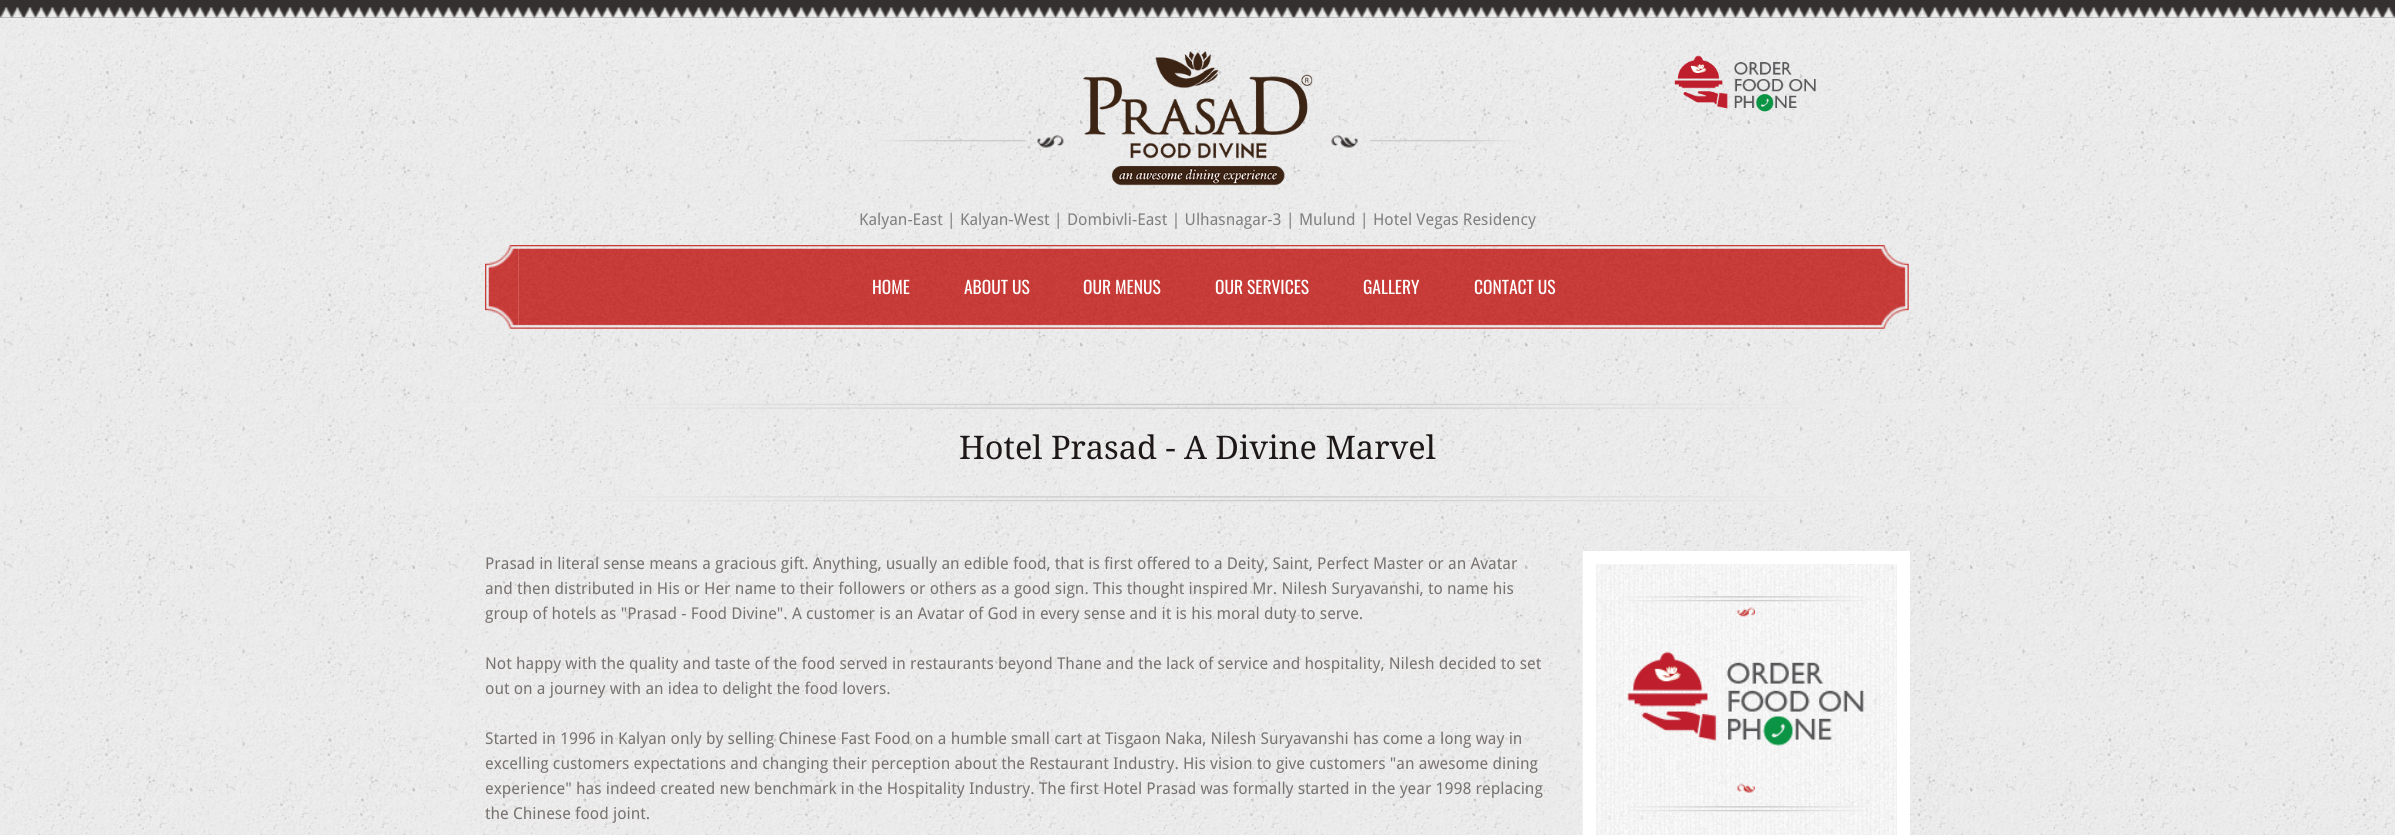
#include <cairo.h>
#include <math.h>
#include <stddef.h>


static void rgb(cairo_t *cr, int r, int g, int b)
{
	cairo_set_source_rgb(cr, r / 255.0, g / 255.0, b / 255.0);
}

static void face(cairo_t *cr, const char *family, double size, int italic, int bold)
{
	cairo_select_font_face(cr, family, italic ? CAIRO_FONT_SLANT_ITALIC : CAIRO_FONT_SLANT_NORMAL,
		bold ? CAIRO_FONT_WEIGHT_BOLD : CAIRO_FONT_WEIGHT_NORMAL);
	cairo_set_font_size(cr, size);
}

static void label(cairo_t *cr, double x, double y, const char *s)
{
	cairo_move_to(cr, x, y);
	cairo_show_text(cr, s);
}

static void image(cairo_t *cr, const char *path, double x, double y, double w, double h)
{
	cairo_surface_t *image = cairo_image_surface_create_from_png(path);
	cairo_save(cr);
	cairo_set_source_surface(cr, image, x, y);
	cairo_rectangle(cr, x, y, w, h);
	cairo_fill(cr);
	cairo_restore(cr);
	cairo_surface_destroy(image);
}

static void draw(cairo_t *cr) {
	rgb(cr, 52, 48, 47);
	cairo_paint(cr);
	image(cr, "image0.png", 0, 7, 2395, 11);
	image(cr, "image1.png", 0, 17, 2395, 818);
	image(cr, "image2.png", 1674, 55, 142, 57);
	image(cr, "image3.png", 856, 135, 208, 13);
	image(cr, "image4.png", 1083, 51, 230, 135);
	image(cr, "image5.png", 1331, 135, 208, 13);
	face(cr, "Droid Sans", 16.25, 0, 0);
	rgb(cr, 128, 128, 128);
	label(cr, 859, 225, "Kalyan-East | Kalyan-West | Dombivli-East | Ulhasnagar-3 | Mulund | Hotel Vegas Residency");
	image(cr, "image6.png", 485, 245, 34, 84);
	image(cr, "image7.png", 518, 245, 1391, 84);
	face(cr, "Oswald", 17.5, 0, 0);
	rgb(cr, 255, 255, 255);
	label(cr, 872, 294, "HOME");
	label(cr, 964, 294, "ABOUT US");
	label(cr, 1083, 294, "OUR MENUS");
	label(cr, 1215, 294, "OUR SERVICES");
	label(cr, 1363, 294, "GALLERY");
	label(cr, 1474, 294, "CONTACT US");
	image(cr, "image8.png", 468, 403, 1460, 6);
	face(cr, "Droid Serif", 32.5, 0, 0);
	rgb(cr, 29, 24, 23);
	label(cr, 959, 459, "Hotel Prasad - A Divine Marvel");
	image(cr, "image9.png", 469, 496, 1459, 6);
	face(cr, "Droid Sans", 16.25, 0, 0);
	rgb(cr, 120, 115, 113);
	label(cr, 485, 569, "Prasad in literal sense means a gracious gift. Anything, usually an edible food, that is first offered to a Deity, Saint, Perfect Master or an Avatar");
	label(cr, 485, 594, "and then distributed in His or Her name to their followers or others as a good sign. This thought inspired Mr. Nilesh Suryavanshi, to name his");
	label(cr, 485, 619, "group of hotels as \"Prasad - Food Divine\". A customer is an Avatar of God in every sense and it is his moral duty to serve.");
	label(cr, 485, 669, "Not happy with the quality and taste of the food served in restaurants beyond Thane and the lack of service and hospitality, Nilesh decided to set");
	label(cr, 485, 694, "out on a journey with an idea to delight the food lovers.");
	label(cr, 485, 744, "Started in 1996 in Kalyan only by selling Chinese Fast Food on a humble small cart at Tisgaon Naka, Nilesh Suryavanshi has come a long way in");
	label(cr, 485, 769, "excelling customers expectations and changing their perception about the Restaurant Industry. His vision to give customers \"an awesome dining");
	label(cr, 485, 794, "experience\" has indeed created new benchmark in the Hospitality Industry. The first Hotel Prasad was formally started in the year 1998 replacing");
	label(cr, 485, 819, "the Chinese food joint.");
	image(cr, "image10.png", 1582, 551, 315, 284);
	cairo_rectangle(cr, 1589.5, 557.5, 314, 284);
	rgb(cr, 255, 255, 255);
	cairo_set_line_width(cr, 13);
	cairo_stroke(cr);
	image(cr, "image11.png", 1628, 596, 237, 6);
	image(cr, "image12.png", 1737, 607, 18, 10);
	image(cr, "image13.png", 1627, 651, 238, 95);
	image(cr, "image14.png", 1737, 783, 18, 10);
	image(cr, "image15.png", 1628, 806, 237, 6);
}

int main(void) {
	cairo_surface_t *surface = cairo_image_surface_create(CAIRO_FORMAT_RGB24, 2395, 835);
	cairo_t *cr = cairo_create(surface);
	cairo_font_options_t *options = cairo_font_options_create();
	cairo_font_options_set_hint_metrics(options, CAIRO_HINT_METRICS_OFF);
	cairo_font_options_set_hint_style(options, CAIRO_HINT_STYLE_NONE);
	cairo_set_font_options(cr, options);
	cairo_set_miter_limit(cr, 4);
	draw(cr);
	cairo_surface_write_to_png(surface, "render.png");
	cairo_font_options_destroy(options);
	cairo_destroy(cr);
	cairo_surface_destroy(surface);
	return 0;
}
